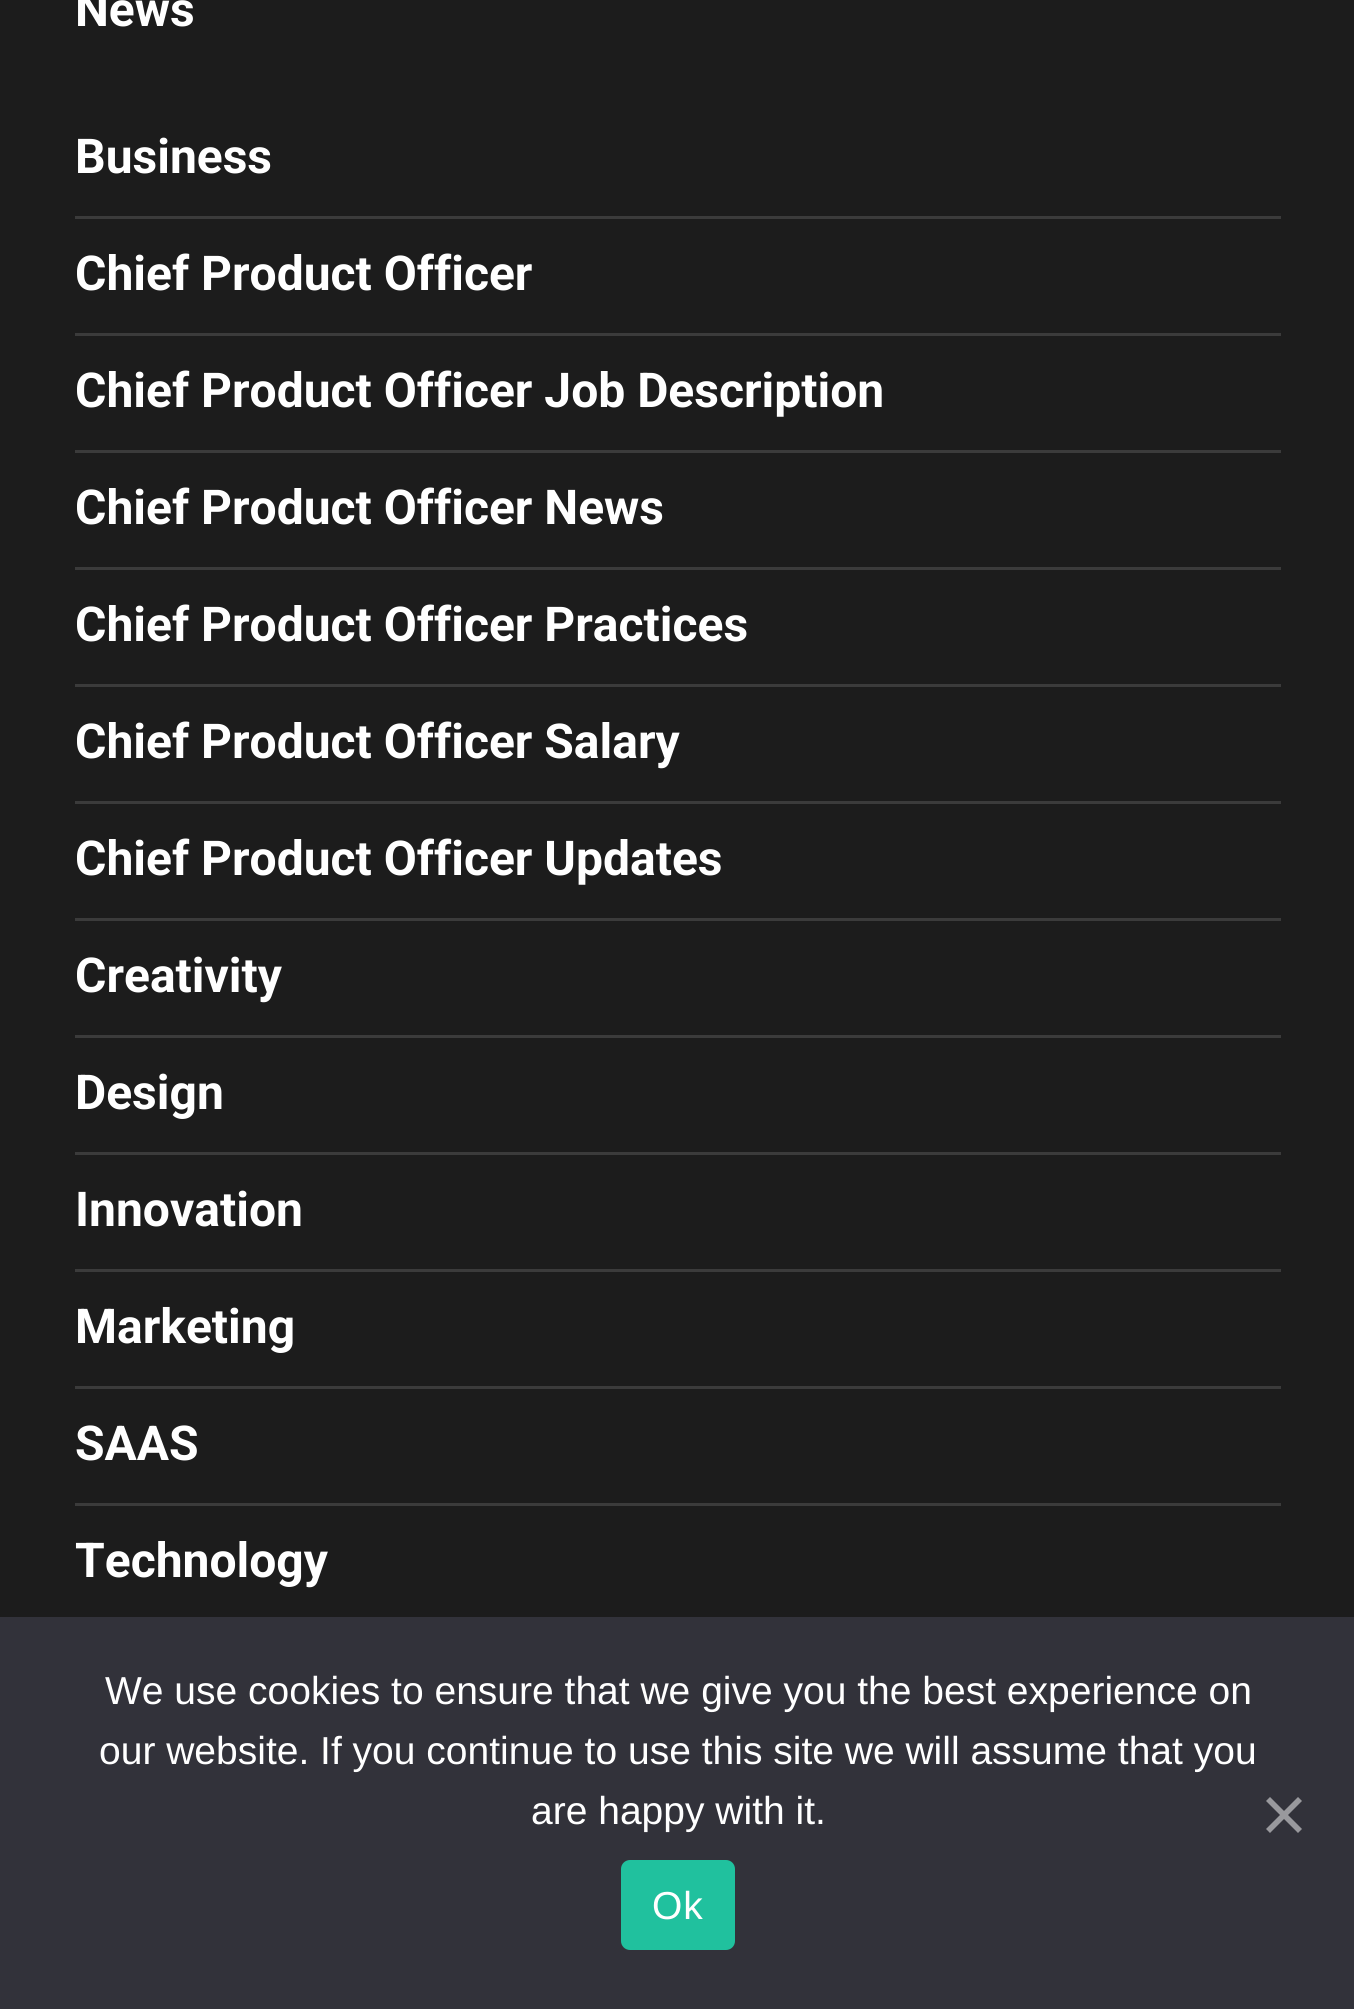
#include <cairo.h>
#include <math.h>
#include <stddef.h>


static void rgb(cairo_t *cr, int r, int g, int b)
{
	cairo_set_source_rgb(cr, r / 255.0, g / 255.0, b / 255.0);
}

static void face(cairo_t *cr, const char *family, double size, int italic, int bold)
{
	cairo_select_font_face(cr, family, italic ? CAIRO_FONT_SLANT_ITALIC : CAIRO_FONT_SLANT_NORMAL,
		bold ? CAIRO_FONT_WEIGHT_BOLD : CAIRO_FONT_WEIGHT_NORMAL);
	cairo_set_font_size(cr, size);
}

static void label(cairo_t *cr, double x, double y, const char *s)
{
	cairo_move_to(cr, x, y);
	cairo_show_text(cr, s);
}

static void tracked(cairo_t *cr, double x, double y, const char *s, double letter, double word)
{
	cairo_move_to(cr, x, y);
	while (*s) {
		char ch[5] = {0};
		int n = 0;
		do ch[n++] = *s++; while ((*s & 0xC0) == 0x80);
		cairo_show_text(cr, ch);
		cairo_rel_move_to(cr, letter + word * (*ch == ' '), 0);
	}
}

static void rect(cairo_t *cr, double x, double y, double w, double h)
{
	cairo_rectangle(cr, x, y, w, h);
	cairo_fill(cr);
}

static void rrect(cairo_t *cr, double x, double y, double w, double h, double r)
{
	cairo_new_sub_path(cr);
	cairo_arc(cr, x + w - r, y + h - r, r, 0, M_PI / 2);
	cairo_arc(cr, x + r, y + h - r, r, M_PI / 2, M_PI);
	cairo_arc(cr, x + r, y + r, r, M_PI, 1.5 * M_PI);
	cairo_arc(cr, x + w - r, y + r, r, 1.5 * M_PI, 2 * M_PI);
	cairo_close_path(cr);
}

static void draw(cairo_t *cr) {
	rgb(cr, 28, 28, 28);
	cairo_paint(cr);
	face(cr, "Roboto", 48, 0, 1);
	rgb(cr, 255, 255, 255);
	label(cr, 75, 26, "News");
	rgb(cr, 59, 59, 59);
	rect(cr, 75, 216, 1206, 3);
	rgb(cr, 255, 255, 255);
	label(cr, 75, 173, "Business");
	rgb(cr, 59, 59, 59);
	rect(cr, 75, 333, 1206, 3);
	rgb(cr, 255, 255, 255);
	label(cr, 75, 290, "Chief Product Officer");
	rgb(cr, 59, 59, 59);
	rect(cr, 75, 450, 1206, 3);
	rgb(cr, 255, 255, 255);
	label(cr, 75, 407, "Chief Product Officer Job Description");
	rgb(cr, 59, 59, 59);
	rect(cr, 75, 567, 1206, 3);
	rgb(cr, 255, 255, 255);
	label(cr, 75, 524, "Chief Product Officer News");
	rgb(cr, 59, 59, 59);
	rect(cr, 75, 684, 1206, 3);
	rgb(cr, 255, 255, 255);
	label(cr, 75, 641, "Chief Product Officer Practices");
	rgb(cr, 59, 59, 59);
	rect(cr, 75, 801, 1206, 3);
	rgb(cr, 255, 255, 255);
	label(cr, 75, 758, "Chief Product Officer Salary");
	rgb(cr, 59, 59, 59);
	rect(cr, 75, 918, 1206, 3);
	rgb(cr, 255, 255, 255);
	label(cr, 75, 875, "Chief Product Officer Updates");
	rgb(cr, 59, 59, 59);
	rect(cr, 75, 1035, 1206, 3);
	rgb(cr, 255, 255, 255);
	label(cr, 75, 992, "Creativity");
	rgb(cr, 59, 59, 59);
	rect(cr, 75, 1152, 1206, 3);
	rgb(cr, 255, 255, 255);
	label(cr, 75, 1109, "Design");
	rgb(cr, 59, 59, 59);
	rect(cr, 75, 1269, 1206, 3);
	rgb(cr, 255, 255, 255);
	label(cr, 75, 1226, "Innovation");
	rgb(cr, 59, 59, 59);
	rect(cr, 75, 1386, 1206, 3);
	rgb(cr, 255, 255, 255);
	label(cr, 75, 1343, "Marketing");
	rgb(cr, 59, 59, 59);
	rect(cr, 75, 1503, 1206, 3);
	rgb(cr, 255, 255, 255);
	label(cr, 75, 1460, "SAAS");
	label(cr, 75, 1577, "Technology");
	rgb(cr, 50, 50, 58);
	rect(cr, 0, 1617, 1354, 392);
	face(cr, "Liberation Sans", 39, 0, 0);
	rgb(cr, 255, 255, 255);
	label(cr, 105, 1704, "We use cookies to ensure that we give you the best experience on");
	label(cr, 99, 1764, "our website. If you continue to use this site we will assume that you");
	label(cr, 531, 1824, "are happy with it.");
	rgb(cr, 153, 153, 157);
	cairo_new_path(cr);
	cairo_move_to(cr, 1298, 1797);
	cairo_line_to(cr, 1302, 1801);
	cairo_line_to(cr, 1270, 1833);
	cairo_line_to(cr, 1266, 1829);
	cairo_close_path(cr);
	cairo_fill(cr);
	cairo_new_path(cr);
	cairo_move_to(cr, 1266, 1801);
	cairo_line_to(cr, 1270, 1797);
	cairo_line_to(cr, 1302, 1829);
	cairo_line_to(cr, 1298, 1833);
	cairo_close_path(cr);
	cairo_fill(cr);
	rgb(cr, 32, 193, 158);
	rrect(cr, 621, 1860, 114, 90, 9);
	cairo_fill(cr);
	rgb(cr, 255, 255, 255);
	tracked(cr, 652, 1919, "Ok", 1, 0);
}

int main(void) {
	cairo_surface_t *surface = cairo_image_surface_create(CAIRO_FORMAT_RGB24, 1354, 2009);
	cairo_t *cr = cairo_create(surface);
	cairo_font_options_t *options = cairo_font_options_create();
	cairo_font_options_set_hint_metrics(options, CAIRO_HINT_METRICS_OFF);
	cairo_font_options_set_hint_style(options, CAIRO_HINT_STYLE_NONE);
	cairo_set_font_options(cr, options);
	cairo_set_miter_limit(cr, 4);
	draw(cr);
	cairo_surface_write_to_png(surface, "render.png");
	cairo_font_options_destroy(options);
	cairo_destroy(cr);
	cairo_surface_destroy(surface);
	return 0;
}
